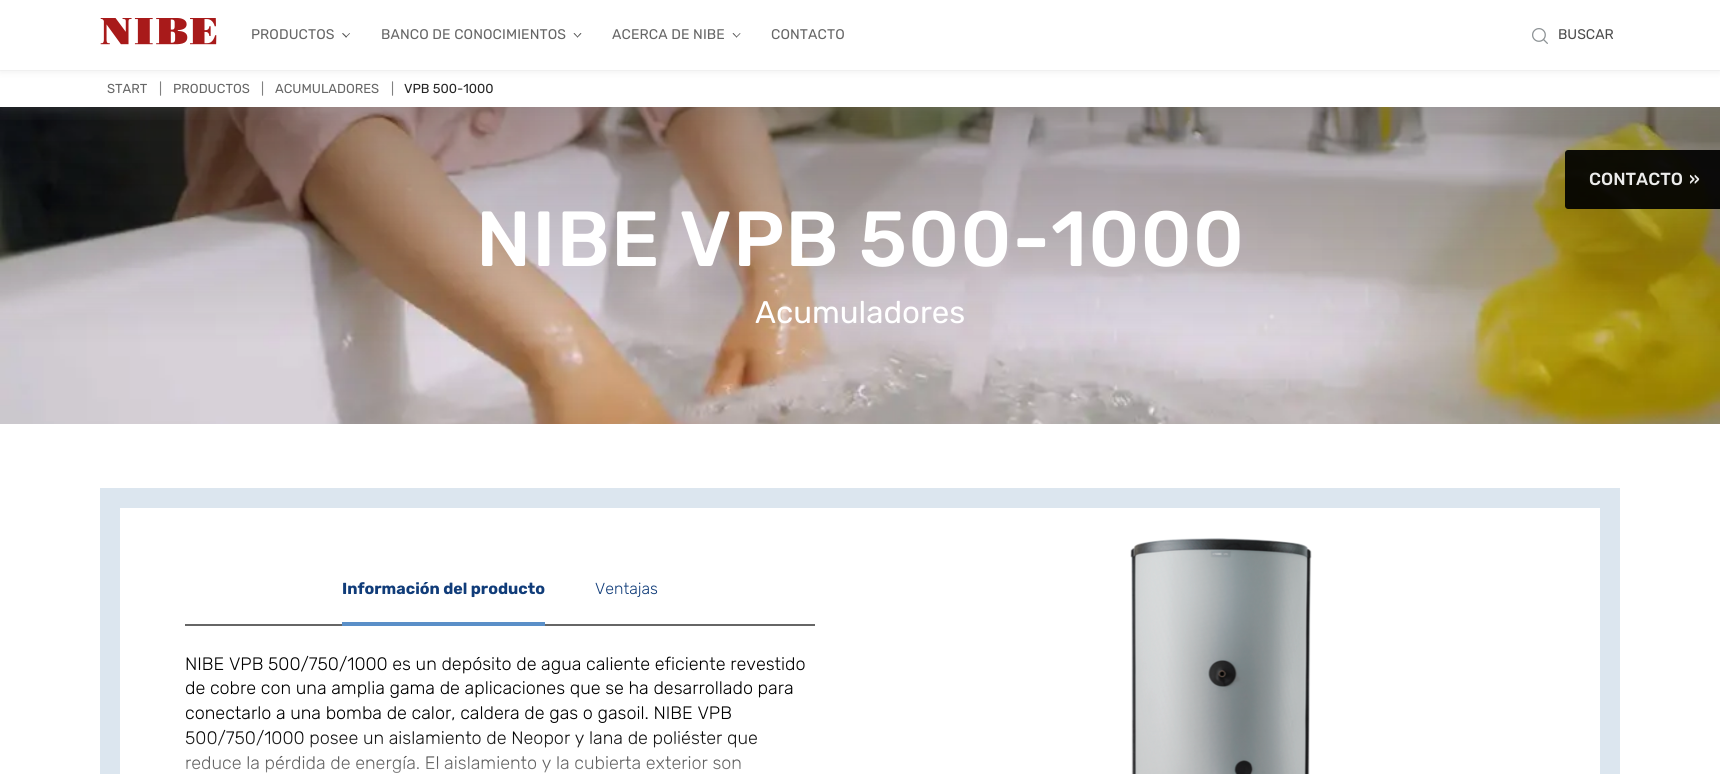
#include <cairo.h>
#include <math.h>
#include <stddef.h>


static void rgb(cairo_t *cr, int r, int g, int b)
{
	cairo_set_source_rgb(cr, r / 255.0, g / 255.0, b / 255.0);
}

static void face(cairo_t *cr, const char *family, double size, int italic, int bold)
{
	cairo_select_font_face(cr, family, italic ? CAIRO_FONT_SLANT_ITALIC : CAIRO_FONT_SLANT_NORMAL,
		bold ? CAIRO_FONT_WEIGHT_BOLD : CAIRO_FONT_WEIGHT_NORMAL);
	cairo_set_font_size(cr, size);
}

static void label(cairo_t *cr, double x, double y, const char *s)
{
	cairo_move_to(cr, x, y);
	cairo_show_text(cr, s);
}

static void tracked(cairo_t *cr, double x, double y, const char *s, double letter, double word)
{
	cairo_move_to(cr, x, y);
	while (*s) {
		char ch[5] = {0};
		int n = 0;
		do ch[n++] = *s++; while ((*s & 0xC0) == 0x80);
		cairo_show_text(cr, ch);
		cairo_rel_move_to(cr, letter + word * (*ch == ' '), 0);
	}
}

static void rect(cairo_t *cr, double x, double y, double w, double h)
{
	cairo_rectangle(cr, x, y, w, h);
	cairo_fill(cr);
}

static void rrect(cairo_t *cr, double x, double y, double w, double h, double r)
{
	cairo_new_sub_path(cr);
	cairo_arc(cr, x + w - r, y + h - r, r, 0, M_PI / 2);
	cairo_arc(cr, x + r, y + h - r, r, M_PI / 2, M_PI);
	cairo_arc(cr, x + r, y + r, r, M_PI, 1.5 * M_PI);
	cairo_arc(cr, x + w - r, y + r, r, 1.5 * M_PI, 2 * M_PI);
	cairo_close_path(cr);
}

static void soft_shadow(cairo_t *cr, double x, double y, double w, double h, double r, double blur, double alpha)
{
	cairo_push_group_with_content(cr, CAIRO_CONTENT_ALPHA);
	cairo_set_operator(cr, CAIRO_OPERATOR_SOURCE);
	for (int i = 15; i >= -15 && fmin(w, h) + blur * i / 3 > 0; i -= 2) {
		double e = blur * i / 6;
		cairo_set_source_rgba(cr, 0, 0, 0, alpha * erfc((i - 1) / 8.5) / 2);
		rrect(cr, x - e, y - e, w + 2 * e, h + 2 * e, fmax(0, fmin(r + e + blur * .6, fmin(w, h) / 2 + e)));
		cairo_fill(cr);
	}
	cairo_pattern_t *soft = cairo_pop_group(cr);
	cairo_mask(cr, soft);
	cairo_pattern_destroy(soft);
}

static void image(cairo_t *cr, const char *path, double x, double y, double w, double h)
{
	cairo_surface_t *image = cairo_image_surface_create_from_png(path);
	cairo_save(cr);
	cairo_set_source_surface(cr, image, x, y);
	cairo_rectangle(cr, x, y, w, h);
	cairo_fill(cr);
	cairo_restore(cr);
	cairo_surface_destroy(image);
}

static void draw(cairo_t *cr) {
	cairo_pattern_t *gradient;
	rgb(cr, 255, 255, 255);
	cairo_paint(cr);
	image(cr, "image2.png", 0, 107, 1720, 317);
	cairo_save(cr);
	cairo_rectangle(cr, 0, 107, 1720, 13);
	cairo_clip(cr);
	rgb(cr, 128, 128, 128);
	soft_shadow(cr, 0, 73, 1720, 37, 0, 7.5, 0.2);
	cairo_restore(cr);
	cairo_rectangle(cr, -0.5, -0.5, 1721, 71);
	rgb(cr, 249, 249, 249);
	cairo_set_line_width(cr, 1);
	cairo_stroke(cr);
	rgb(cr, 128, 128, 128);
	soft_shadow(cr, 0, 2, 1720, 70, 0, 4, 0.12);
	rgb(cr, 255, 255, 255);
	rect(cr, 0, 0, 1720, 70);
	image(cr, "image0.png", 100, 18, 117, 27);
	face(cr, "Rubik", 14, 0, 0);
	rgb(cr, 102, 102, 102);
	tracked(cr, 251, 39, "PRODUCTOS", 0.1, 0);
	rgb(cr, 77, 77, 77);
	cairo_new_path(cr);
	cairo_move_to(cr, 349.5, 33);
	cairo_line_to(cr, 350, 33.5);
	cairo_line_to(cr, 346, 37.5);
	cairo_line_to(cr, 345.5, 37);
	cairo_close_path(cr);
	cairo_fill(cr);
	cairo_new_path(cr);
	cairo_move_to(cr, 343, 33);
	cairo_line_to(cr, 347, 37);
	cairo_line_to(cr, 346, 37.5);
	cairo_line_to(cr, 342, 33.5);
	cairo_close_path(cr);
	cairo_fill(cr);
	rgb(cr, 102, 102, 102);
	tracked(cr, 381, 39, "BANCO DE CONOCIMIENTOS", 0.1, 0);
	rgb(cr, 77, 77, 77);
	cairo_new_path(cr);
	cairo_move_to(cr, 580.5, 33);
	cairo_line_to(cr, 581.5, 33.5);
	cairo_line_to(cr, 577.5, 37.5);
	cairo_line_to(cr, 577, 37);
	cairo_close_path(cr);
	cairo_fill(cr);
	cairo_new_path(cr);
	cairo_move_to(cr, 574.5, 33);
	cairo_line_to(cr, 578, 37);
	cairo_line_to(cr, 577.5, 37.5);
	cairo_line_to(cr, 573.5, 33.5);
	cairo_close_path(cr);
	cairo_fill(cr);
	rgb(cr, 102, 102, 102);
	tracked(cr, 612, 39, "ACERCA DE NIBE", 0.1, 0);
	rgb(cr, 77, 77, 77);
	cairo_new_path(cr);
	cairo_move_to(cr, 740, 33);
	cairo_line_to(cr, 740.5, 33.5);
	cairo_line_to(cr, 736.5, 37.5);
	cairo_line_to(cr, 736, 37);
	cairo_close_path(cr);
	cairo_fill(cr);
	cairo_new_path(cr);
	cairo_move_to(cr, 733.5, 33);
	cairo_line_to(cr, 737, 37);
	cairo_line_to(cr, 736.5, 37.5);
	cairo_line_to(cr, 732.5, 33.5);
	cairo_close_path(cr);
	cairo_fill(cr);
	rgb(cr, 102, 102, 102);
	tracked(cr, 771, 39, "CONTACTO", 0.1, 0);
	image(cr, "image1.png", 1532, 28, 16, 16);
	rgb(cr, 77, 77, 77);
	label(cr, 1558, 39, "BUSCAR");
	face(cr, "Rubik", 13, 0, 0);
	rgb(cr, 102, 102, 102);
	label(cr, 107, 93, "START");
	rgb(cr, 128, 128, 128);
	label(cr, 159, 93, "|");
	rgb(cr, 102, 102, 102);
	label(cr, 173, 93, "PRODUCTOS");
	rgb(cr, 128, 128, 128);
	label(cr, 261, 93, "|");
	rgb(cr, 102, 102, 102);
	label(cr, 275, 93, "ACUMULADORES");
	rgb(cr, 128, 128, 128);
	label(cr, 391, 93, "|");
	rgb(cr, 37, 37, 37);
	label(cr, 404, 93, "VPB 500-1000");
	cairo_set_source_rgba(cr, 0, 0, 0, 0.92);
	cairo_new_path(cr);
	cairo_move_to(cr, 1568, 150);
	cairo_line_to(cr, 1720, 150);
	cairo_line_to(cr, 1720, 209);
	cairo_line_to(cr, 1568, 209);
	cairo_curve_to(cr, 1566.5, 209, 1565, 207.5, 1565, 206);
	cairo_line_to(cr, 1565, 153);
	cairo_curve_to(cr, 1565, 151.5, 1566.5, 150, 1568, 150);
	cairo_close_path(cr);
	cairo_fill(cr);
	face(cr, "Rubik Medium", 17.5, 0, 0);
	rgb(cr, 236, 236, 235);
	label(cr, 1589, 185, "CONTACTO");
	label(cr, 1689, 185, "»");
	face(cr, "Rubik Medium", 78, 0, 0);
	rgb(cr, 255, 255, 255);
	tracked(cr, 476, 266, "NIBE VPB 500-1000", 1, 0);
	face(cr, "Rubik", 31.25, 0, 0);
	label(cr, 755, 323, "Acumuladores");
	cairo_rectangle(cr, 110, 498, 1500, 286);
	rgb(cr, 220, 230, 239);
	cairo_set_line_width(cr, 20);
	cairo_stroke(cr);
	rgb(cr, 102, 102, 102);
	rect(cr, 185, 624, 630, 2);
	rgb(cr, 90, 143, 200);
	rect(cr, 342, 622, 203, 4);
	face(cr, "Rubik", 16, 0, 1);
	rgb(cr, 16, 60, 121);
	label(cr, 342, 594, "Información del producto");
	face(cr, "Rubik Light", 16, 0, 0);
	label(cr, 595, 594, "Ventajas");
	face(cr, "Rubik Light", 18, 0, 0);
	rgb(cr, 0, 0, 0);
	label(cr, 185, 670, "NIBE VPB 500/750/1000 es un depósito de agua caliente eficiente revestido");
	label(cr, 185, 694, "de cobre con una amplia gama de aplicaciones que se ha desarrollado para");
	label(cr, 185, 719, "conectarlo a una bomba de calor, caldera de gas o gasoil. NIBE VPB");
	label(cr, 185, 744, "500/750/1000 posee un aislamiento de Neopor y lana de poliéster que");
	label(cr, 185, 769, "reduce la pérdida de energía. El aislamiento y la cubierta exterior son");
	gradient = cairo_pattern_create_linear(500, 732, 500, 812);
	cairo_pattern_add_color_stop_rgba(gradient, 0, 1, 1, 1, 0);
	cairo_pattern_add_color_stop_rgba(gradient, 1, 1, 1, 1, 1);
	cairo_set_source(cr, gradient);
	cairo_pattern_destroy(gradient);
	rect(cr, 186, 734, 571, 39);
	image(cr, "image3.png", 1130, 538, 182, 236);
}

int main(void) {
	cairo_surface_t *surface = cairo_image_surface_create(CAIRO_FORMAT_RGB24, 1720, 774);
	cairo_t *cr = cairo_create(surface);
	cairo_font_options_t *options = cairo_font_options_create();
	cairo_font_options_set_hint_metrics(options, CAIRO_HINT_METRICS_OFF);
	cairo_font_options_set_hint_style(options, CAIRO_HINT_STYLE_NONE);
	cairo_set_font_options(cr, options);
	cairo_set_miter_limit(cr, 4);
	draw(cr);
	cairo_surface_write_to_png(surface, "render.png");
	cairo_font_options_destroy(options);
	cairo_destroy(cr);
	cairo_surface_destroy(surface);
	return 0;
}
